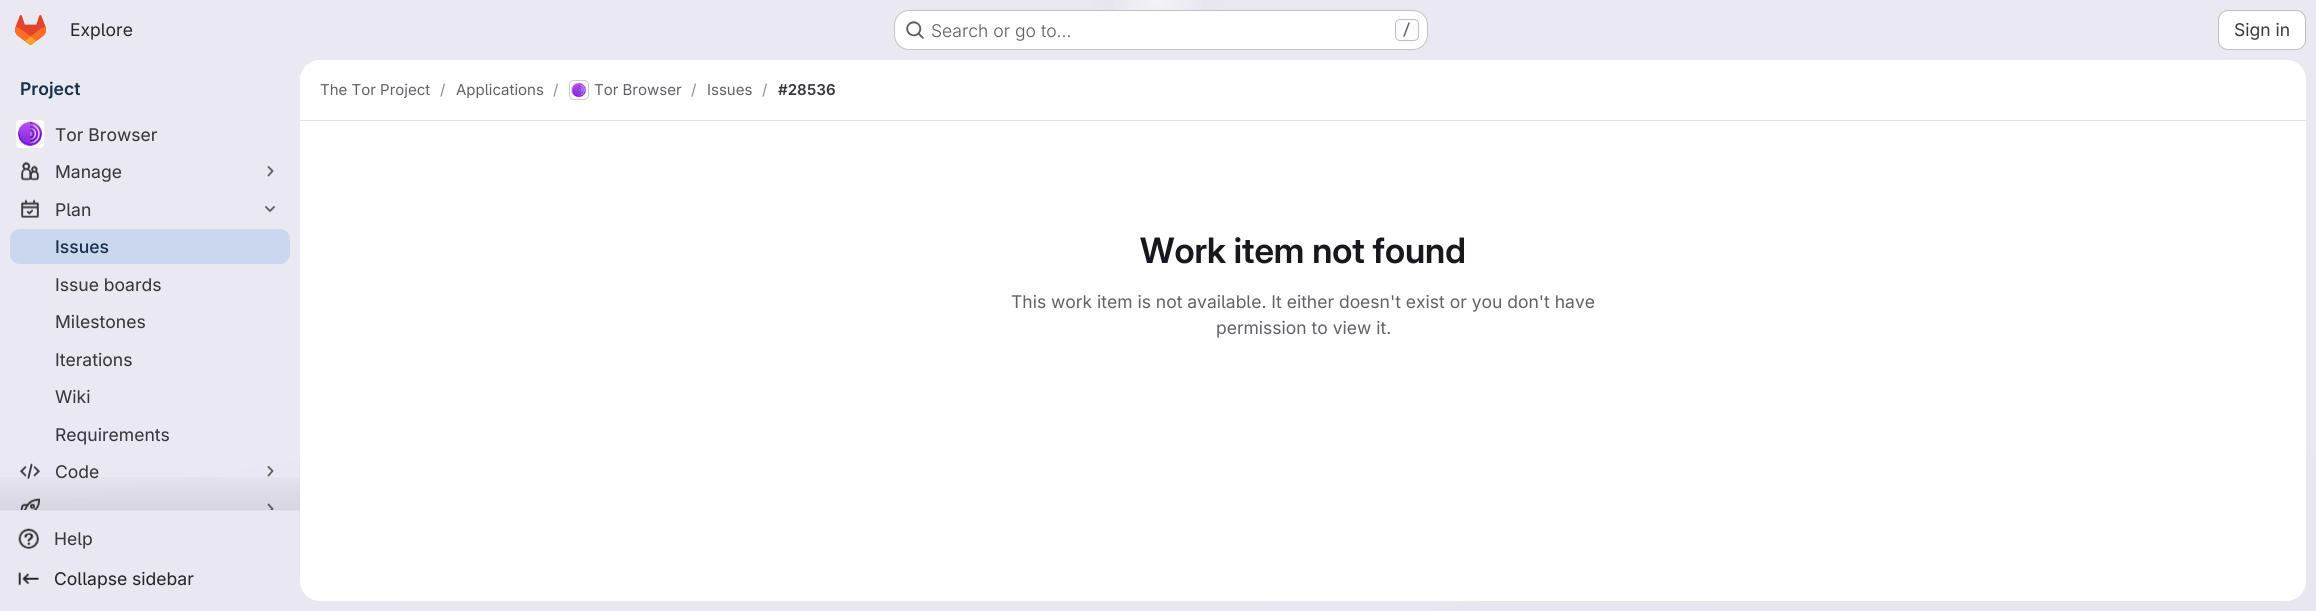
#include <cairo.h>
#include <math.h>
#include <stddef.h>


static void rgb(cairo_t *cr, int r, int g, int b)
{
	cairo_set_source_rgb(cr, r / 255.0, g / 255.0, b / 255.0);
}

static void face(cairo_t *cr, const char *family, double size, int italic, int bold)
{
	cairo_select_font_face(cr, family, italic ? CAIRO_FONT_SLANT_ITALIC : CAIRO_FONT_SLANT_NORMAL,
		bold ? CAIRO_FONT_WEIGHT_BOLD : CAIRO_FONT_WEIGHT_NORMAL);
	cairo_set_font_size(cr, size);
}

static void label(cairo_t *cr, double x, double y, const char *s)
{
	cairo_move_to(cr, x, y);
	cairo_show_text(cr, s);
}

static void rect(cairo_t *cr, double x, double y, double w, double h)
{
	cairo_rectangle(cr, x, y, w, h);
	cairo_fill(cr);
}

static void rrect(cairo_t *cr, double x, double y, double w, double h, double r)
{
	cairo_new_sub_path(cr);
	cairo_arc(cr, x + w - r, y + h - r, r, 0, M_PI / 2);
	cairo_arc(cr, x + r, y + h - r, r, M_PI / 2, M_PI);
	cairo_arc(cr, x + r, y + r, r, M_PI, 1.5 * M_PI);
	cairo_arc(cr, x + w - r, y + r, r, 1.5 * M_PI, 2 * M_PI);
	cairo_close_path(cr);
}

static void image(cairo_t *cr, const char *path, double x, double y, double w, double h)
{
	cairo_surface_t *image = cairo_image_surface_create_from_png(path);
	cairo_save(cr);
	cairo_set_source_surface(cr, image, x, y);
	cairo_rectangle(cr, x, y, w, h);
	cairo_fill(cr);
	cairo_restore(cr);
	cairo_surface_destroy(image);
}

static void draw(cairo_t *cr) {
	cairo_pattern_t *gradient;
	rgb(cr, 255, 255, 255);
	cairo_paint(cr);
	gradient = cairo_pattern_create_linear(1245, 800, 1071, -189);
	cairo_pattern_add_color_stop_rgba(gradient, 0, 0.91, 0.902, 0.941, 1);
	cairo_pattern_add_color_stop_rgba(gradient, 0.7, 0.918, 0.914, 0.949, 1);
	cairo_set_source(cr, gradient);
	cairo_pattern_destroy(gradient);
	rect(cr, 0, 0, 2316, 611);
	gradient = cairo_pattern_create_radial(0, 0, 0, 0, 0, 1);
	cairo_pattern_set_matrix(gradient, &(cairo_matrix_t){1.0 / 1158, 0, 0, 1.0 / 611, -1.0 * 1158 / 1158, -1.0 * 0 / 611});
	cairo_pattern_add_color_stop_rgba(gradient, 0, 0.894, 0.886, 0.929, 1);
	cairo_pattern_add_color_stop_rgba(gradient, 0.08, 0.894, 0.886, 0.929, 0);
	cairo_set_source(cr, gradient);
	cairo_pattern_destroy(gradient);
	rect(cr, 1092, 0, 132, 10);
	gradient = cairo_pattern_create_radial(0, 0, 0, 0, 0, 1);
	cairo_pattern_set_matrix(gradient, &(cairo_matrix_t){1.0 / 1158, 0, 0, 1.0 / 611, -1.0 * 1158 / 1158, -1.0 * 0 / 611});
	cairo_pattern_add_color_stop_rgba(gradient, 0, 0.894, 0.886, 0.925, 1);
	cairo_pattern_add_color_stop_rgba(gradient, 0.05, 0.894, 0.886, 0.925, 0);
	cairo_set_source(cr, gradient);
	cairo_pattern_destroy(gradient);
	rect(cr, 1146, 1, 1, 1);
	gradient = cairo_pattern_create_radial(1158, 0, 0, 1158, 0, 1310);
	cairo_pattern_add_color_stop_rgba(gradient, 0, 1, 1, 1, 0.6);
	cairo_pattern_add_color_stop_rgba(gradient, 0.04, 1, 1, 1, 0);
	cairo_set_source(cr, gradient);
	cairo_pattern_destroy(gradient);
	rect(cr, 1114, 0, 88, 10);
	image(cr, "image0.png", 15, 15, 31, 30);
	face(cr, "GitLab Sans", 17.5, 0, 0);
	rgb(cr, 40, 39, 45);
	label(cr, 70, 36, "Explore");
	rgb(cr, 255, 255, 255);
	rrect(cr, 894, 10, 534, 40, 15);
	cairo_fill(cr);
	rrect(cr, 894.5, 10.5, 533, 39, 14.5);
	cairo_set_source_rgba(cr, 0.02, 0.02, 0.024, 0.24);
	cairo_set_line_width(cr, 1);
	cairo_stroke(cr);
	image(cr, "image1.png", 906, 21, 18, 18);
	face(cr, "GitLab Sans Light", 17.5, 0, 0);
	rgb(cr, 98, 97, 104);
	label(cr, 931, 37, "Search or go to…");
	rgb(cr, 251, 250, 253);
	rrect(cr, 1395.5, 19.5, 23, 21, 4.5);
	cairo_fill_preserve(cr);
	rgb(cr, 191, 191, 195);
	cairo_stroke(cr);
	face(cr, "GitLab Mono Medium", 15, 0, 0);
	rgb(cr, 98, 97, 104);
	label(cr, 1402, 35, "/");
	rgb(cr, 255, 255, 255);
	rrect(cr, 2218.5, 10.5, 87, 39, 9.5);
	cairo_fill_preserve(cr);
	rgb(cr, 191, 191, 195);
	cairo_stroke(cr);
	face(cr, "GitLab Sans", 17.5, 0, 0);
	rgb(cr, 58, 56, 63);
	label(cr, 2234, 36, "Sign in");
	face(cr, "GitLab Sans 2 SemiBold", 17.5, 0, 0);
	rgb(cr, 24, 51, 78);
	label(cr, 20, 95, "Project");
	rgb(cr, 225, 223, 236);
	rect(cr, 0, 510, 300, 1);
	rgb(cr, 255, 255, 255);
	rrect(cr, 15, 119, 30, 30, 5);
	cairo_fill(cr);
	image(cr, "image2.png", 18, 121, 24, 25);
	rrect(cr, 15.5, 119.5, 29, 29, 4.5);
	cairo_set_source_rgba(cr, 0.02, 0.02, 0.024, 0.08);
	cairo_stroke(cr);
	face(cr, "GitLab Sans 2", 17.5, 0, 0);
	rgb(cr, 58, 56, 63);
	label(cr, 55, 141, "Tor Browser");
	image(cr, "image3.png", 21, 161, 18, 20);
	label(cr, 55, 178, "Manage");
	cairo_new_path(cr);
	cairo_move_to(cr, 268.5, 167);
	cairo_line_to(cr, 272.5, 171);
	cairo_line_to(cr, 268.5, 175.5);
	rgb(cr, 98, 97, 104);
	cairo_set_line_width(cr, 1.9);
	cairo_set_line_cap(cr, CAIRO_LINE_CAP_ROUND);
	cairo_set_line_join(cr, CAIRO_LINE_JOIN_ROUND);
	cairo_stroke(cr);
	image(cr, "image4.png", 21, 199, 18, 19);
	rgb(cr, 58, 56, 63);
	label(cr, 55, 216, "Plan");
	cairo_new_path(cr);
	cairo_move_to(cr, 274, 207);
	cairo_line_to(cr, 270, 211);
	cairo_line_to(cr, 266, 207);
	rgb(cr, 98, 97, 104);
	cairo_stroke(cr);
	rgb(cr, 202, 215, 236);
	rrect(cr, 10, 229, 280, 35, 10);
	cairo_fill(cr);
	face(cr, "GitLab Sans Medium", 17.5, 0, 0);
	rgb(cr, 24, 51, 78);
	label(cr, 55, 253, "Issues");
	face(cr, "GitLab Sans 2", 17.5, 0, 0);
	rgb(cr, 58, 56, 63);
	label(cr, 55, 291, "Issue boards");
	label(cr, 55, 328, "Milestones");
	label(cr, 55, 366, "Iterations");
	label(cr, 55, 403, "Wiki");
	label(cr, 55, 441, "Requirements");
	image(cr, "image5.png", 20, 463, 20, 16);
	label(cr, 55, 478, "Code");
	cairo_new_path(cr);
	cairo_move_to(cr, 268.5, 467);
	cairo_line_to(cr, 272.5, 471);
	cairo_line_to(cr, 268.5, 475.5);
	rgb(cr, 98, 97, 104);
	cairo_stroke(cr);
	image(cr, "image6.png", 20, 498, 20, 12);
	cairo_save(cr);
	cairo_rectangle(cr, 260, 499, 20, 11);
	cairo_clip(cr);
	cairo_new_path(cr);
	cairo_move_to(cr, 268.5, 504.5);
	cairo_line_to(cr, 272.5, 509);
	cairo_line_to(cr, 268.5, 513);
	cairo_stroke(cr);
	cairo_restore(cr);
	gradient = cairo_pattern_create_linear(150, 465, 150, 510);
	cairo_pattern_add_color_stop_rgba(gradient, 0, 0.02, 0.02, 0.024, 0);
	cairo_pattern_add_color_stop_rgba(gradient, 1, 0.02, 0.02, 0.024, 0.08);
	cairo_set_source(cr, gradient);
	cairo_pattern_destroy(gradient);
	rect(cr, 0, 477, 300, 33);
	image(cr, "image7.png", 18, 528, 21, 21);
	rgb(cr, 58, 56, 63);
	label(cr, 54, 545, "Help");
	image(cr, "image8.png", 18, 571, 21, 15);
	rgb(cr, 40, 39, 45);
	label(cr, 54, 585, "Collapse sidebar");
	rgb(cr, 255, 255, 255);
	rrect(cr, 300, 60, 2006, 541, 20);
	cairo_fill(cr);
	cairo_new_path(cr);
	cairo_move_to(cr, 320, 60);
	cairo_line_to(cr, 2286, 60);
	cairo_curve_to(cr, 2297, 60, 2306, 69, 2306, 80);
	cairo_line_to(cr, 2306, 121);
	cairo_line_to(cr, 300, 121);
	cairo_line_to(cr, 300, 80);
	cairo_curve_to(cr, 300, 69, 309, 60, 320, 60);
	cairo_close_path(cr);
	cairo_fill(cr);
	rgb(cr, 225, 223, 236);
	rect(cr, 300, 120, 2006, 1);
	face(cr, "GitLab Sans", 15, 0, 0);
	rgb(cr, 98, 97, 104);
	label(cr, 320, 95, "The Tor Project");
	rgb(cr, 137, 136, 141);
	label(cr, 440, 95, "/");
	rgb(cr, 98, 97, 104);
	label(cr, 456, 95, "Applications");
	rgb(cr, 137, 136, 141);
	label(cr, 553, 95, "/");
	rrect(cr, 569.5, 80.5, 19, 19, 4.5);
	rgb(cr, 220, 220, 222);
	cairo_set_line_width(cr, 1);
	cairo_set_line_cap(cr, CAIRO_LINE_CAP_BUTT);
	cairo_set_line_join(cr, CAIRO_LINE_JOIN_MITER);
	cairo_stroke(cr);
	image(cr, "image9.png", 571, 82, 16, 16);
	rrect(cr, 569.5, 80.5, 19, 19, 4.5);
	cairo_set_source_rgba(cr, 0.02, 0.02, 0.024, 0.08);
	cairo_stroke(cr);
	rgb(cr, 98, 97, 104);
	label(cr, 594, 95, "Tor Browser");
	rgb(cr, 137, 136, 141);
	label(cr, 691, 95, "/");
	rgb(cr, 98, 97, 104);
	label(cr, 707, 95, "Issues");
	rgb(cr, 137, 136, 141);
	label(cr, 762, 95, "/");
	face(cr, "GitLab Sans 2 SemiBold", 15, 0, 0);
	rgb(cr, 58, 56, 63);
	label(cr, 778, 95, "#28536");
	face(cr, "GitLab Sans SemiBold", 35, 0, 0);
	rgb(cr, 24, 23, 29);
	label(cr, 1140, 263, "Work item not found");
	face(cr, "GitLab Sans", 17.5, 0, 0);
	rgb(cr, 98, 97, 104);
	label(cr, 1011, 308, "This work item is not available. It either doesn't exist or you don't have");
	label(cr, 1216, 334, "permission to view it.");
}

int main(void) {
	cairo_surface_t *surface = cairo_image_surface_create(CAIRO_FORMAT_RGB24, 2316, 611);
	cairo_t *cr = cairo_create(surface);
	cairo_font_options_t *options = cairo_font_options_create();
	cairo_font_options_set_hint_metrics(options, CAIRO_HINT_METRICS_OFF);
	cairo_font_options_set_hint_style(options, CAIRO_HINT_STYLE_NONE);
	cairo_set_font_options(cr, options);
	cairo_set_miter_limit(cr, 4);
	draw(cr);
	cairo_surface_write_to_png(surface, "render.png");
	cairo_font_options_destroy(options);
	cairo_destroy(cr);
	cairo_surface_destroy(surface);
	return 0;
}
